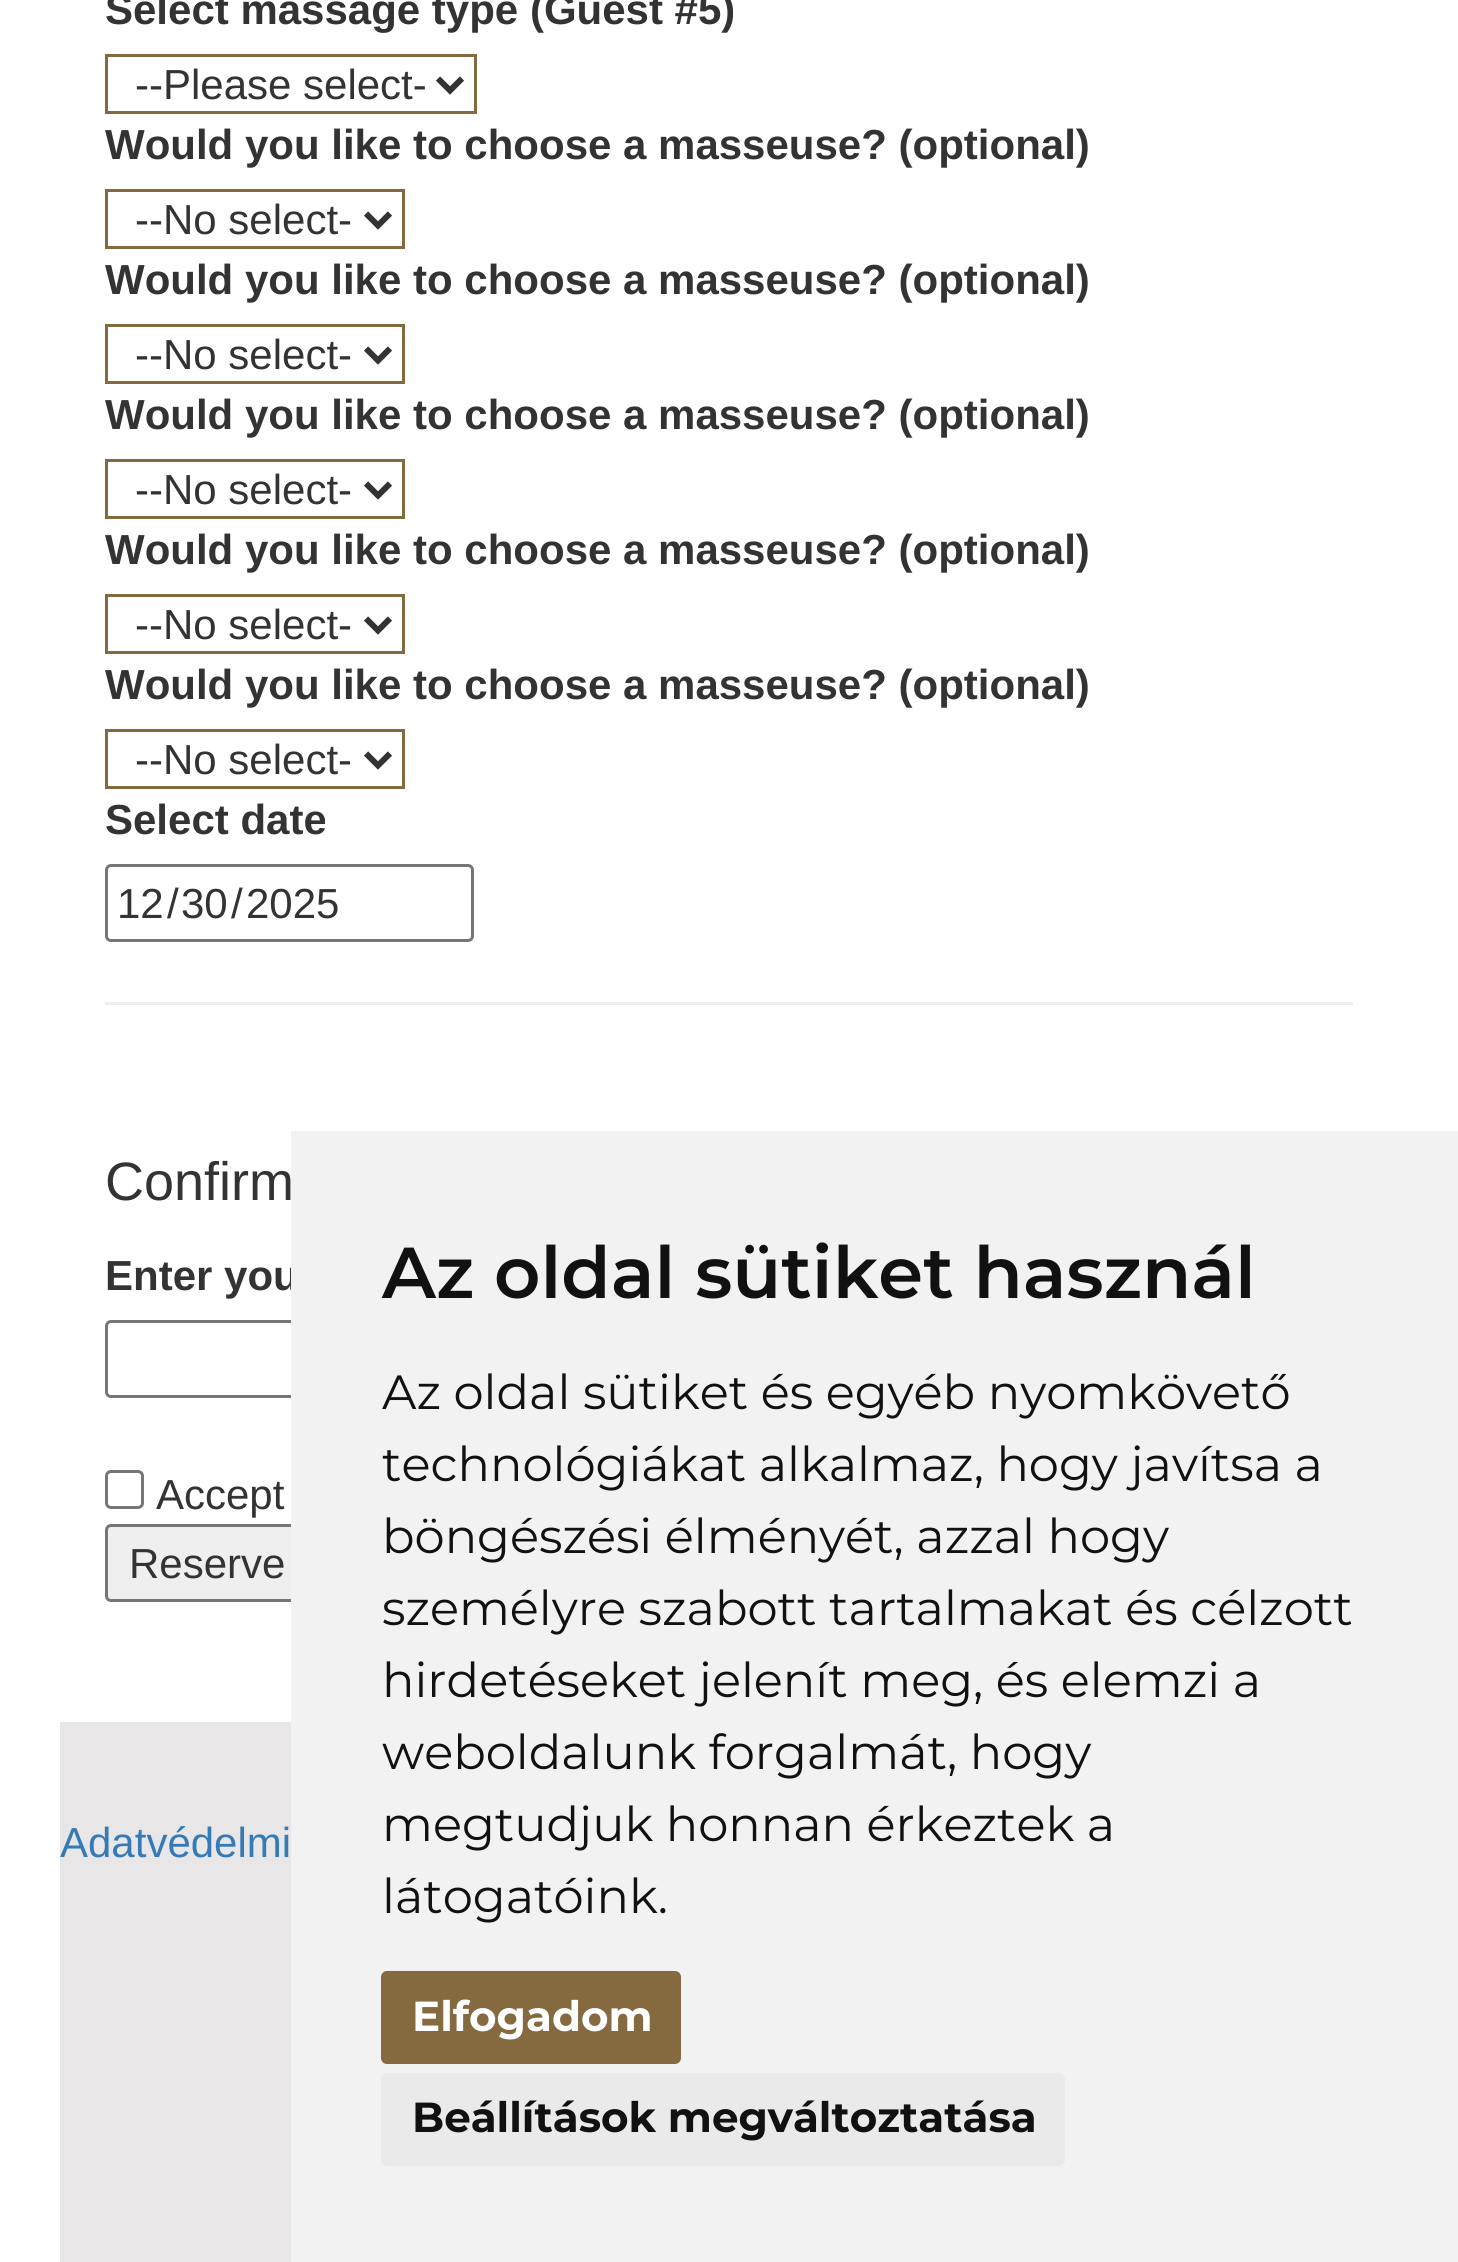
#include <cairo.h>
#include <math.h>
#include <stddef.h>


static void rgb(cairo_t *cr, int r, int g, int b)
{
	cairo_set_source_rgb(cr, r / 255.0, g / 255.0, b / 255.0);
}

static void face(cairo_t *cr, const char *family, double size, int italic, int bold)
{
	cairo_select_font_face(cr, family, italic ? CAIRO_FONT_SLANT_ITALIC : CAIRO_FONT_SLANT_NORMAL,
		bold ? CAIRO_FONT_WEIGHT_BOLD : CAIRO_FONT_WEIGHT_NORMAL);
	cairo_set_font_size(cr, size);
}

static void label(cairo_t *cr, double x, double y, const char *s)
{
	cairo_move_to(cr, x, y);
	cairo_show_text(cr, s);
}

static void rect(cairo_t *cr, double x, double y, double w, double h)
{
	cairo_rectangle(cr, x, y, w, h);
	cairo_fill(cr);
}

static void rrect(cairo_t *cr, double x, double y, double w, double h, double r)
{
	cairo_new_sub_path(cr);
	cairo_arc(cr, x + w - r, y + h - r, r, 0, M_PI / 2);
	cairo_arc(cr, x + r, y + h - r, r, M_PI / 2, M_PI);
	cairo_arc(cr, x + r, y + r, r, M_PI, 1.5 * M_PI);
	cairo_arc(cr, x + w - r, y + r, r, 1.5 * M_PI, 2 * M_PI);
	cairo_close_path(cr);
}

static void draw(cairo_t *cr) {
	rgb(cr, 255, 255, 255);
	cairo_paint(cr);
	face(cr, "Liberation Sans", 42, 0, 1);
	rgb(cr, 51, 51, 51);
	label(cr, 105, 24, "Select massage type (Guest #5)");
	cairo_rectangle(cr, 106.5, 55.5, 369, 57);
	rgb(cr, 133, 106, 63);
	cairo_set_line_width(cr, 3);
	cairo_stroke(cr);
	cairo_new_path(cr);
	cairo_move_to(cr, 438, 78.5);
	cairo_line_to(cr, 450, 90.5);
	cairo_line_to(cr, 462, 78.5);
	rgb(cr, 51, 51, 51);
	cairo_set_line_width(cr, 6);
	cairo_stroke(cr);
	face(cr, "Liberation Sans", 42, 0, 0);
	label(cr, 135, 99, "--Please select-");
	face(cr, "Liberation Sans", 42, 0, 1);
	label(cr, 105, 159, "Would you like to choose a masseuse? (optional)");
	cairo_rectangle(cr, 106.5, 190.5, 297, 57);
	rgb(cr, 133, 106, 63);
	cairo_set_line_width(cr, 3);
	cairo_stroke(cr);
	cairo_new_path(cr);
	cairo_move_to(cr, 366, 213.5);
	cairo_line_to(cr, 378, 225.5);
	cairo_line_to(cr, 390, 213.5);
	rgb(cr, 51, 51, 51);
	cairo_set_line_width(cr, 6);
	cairo_stroke(cr);
	face(cr, "Liberation Sans", 42, 0, 0);
	label(cr, 135, 234, "--No select-");
	face(cr, "Liberation Sans", 42, 0, 1);
	label(cr, 105, 294, "Would you like to choose a masseuse? (optional)");
	cairo_rectangle(cr, 106.5, 325.5, 297, 57);
	rgb(cr, 133, 106, 63);
	cairo_set_line_width(cr, 3);
	cairo_stroke(cr);
	cairo_new_path(cr);
	cairo_move_to(cr, 366, 348.5);
	cairo_line_to(cr, 378, 360.5);
	cairo_line_to(cr, 390, 348.5);
	rgb(cr, 51, 51, 51);
	cairo_set_line_width(cr, 6);
	cairo_stroke(cr);
	face(cr, "Liberation Sans", 42, 0, 0);
	label(cr, 135, 369, "--No select-");
	face(cr, "Liberation Sans", 42, 0, 1);
	label(cr, 105, 429, "Would you like to choose a masseuse? (optional)");
	cairo_rectangle(cr, 106.5, 460.5, 297, 57);
	rgb(cr, 133, 106, 63);
	cairo_set_line_width(cr, 3);
	cairo_stroke(cr);
	cairo_new_path(cr);
	cairo_move_to(cr, 366, 483.5);
	cairo_line_to(cr, 378, 495.5);
	cairo_line_to(cr, 390, 483.5);
	rgb(cr, 51, 51, 51);
	cairo_set_line_width(cr, 6);
	cairo_stroke(cr);
	face(cr, "Liberation Sans", 42, 0, 0);
	label(cr, 135, 504, "--No select-");
	face(cr, "Liberation Sans", 42, 0, 1);
	label(cr, 105, 564, "Would you like to choose a masseuse? (optional)");
	cairo_rectangle(cr, 106.5, 595.5, 297, 57);
	rgb(cr, 133, 106, 63);
	cairo_set_line_width(cr, 3);
	cairo_stroke(cr);
	cairo_new_path(cr);
	cairo_move_to(cr, 366, 618.5);
	cairo_line_to(cr, 378, 630.5);
	cairo_line_to(cr, 390, 618.5);
	rgb(cr, 51, 51, 51);
	cairo_set_line_width(cr, 6);
	cairo_stroke(cr);
	face(cr, "Liberation Sans", 42, 0, 0);
	label(cr, 135, 639, "--No select-");
	face(cr, "Liberation Sans", 42, 0, 1);
	label(cr, 105, 699, "Would you like to choose a masseuse? (optional)");
	cairo_rectangle(cr, 106.5, 730.5, 297, 57);
	rgb(cr, 133, 106, 63);
	cairo_set_line_width(cr, 3);
	cairo_stroke(cr);
	cairo_new_path(cr);
	cairo_move_to(cr, 366, 753.5);
	cairo_line_to(cr, 378, 765.5);
	cairo_line_to(cr, 390, 753.5);
	rgb(cr, 51, 51, 51);
	cairo_set_line_width(cr, 6);
	cairo_stroke(cr);
	face(cr, "Liberation Sans", 42, 0, 0);
	label(cr, 135, 774, "--No select-");
	face(cr, "Liberation Sans", 42, 0, 1);
	label(cr, 105, 834, "Select date");
	rrect(cr, 106.5, 865.5, 366, 75, 4.5);
	rgb(cr, 118, 118, 118);
	cairo_set_line_width(cr, 3);
	cairo_stroke(cr);
	face(cr, "Liberation Sans", 42, 0, 0);
	rgb(cr, 51, 51, 51);
	label(cr, 117, 918, "12");
	label(cr, 167, 918, "/");
	label(cr, 181, 918, "30");
	label(cr, 231, 918, "/");
	label(cr, 246, 918, "2025");
	rgb(cr, 238, 238, 238);
	rect(cr, 105, 1002, 1248, 3);
	face(cr, "Liberation Sans", 54, 0, 0);
	rgb(cr, 51, 51, 51);
	label(cr, 105, 1200, "Confirm");
	face(cr, "Liberation Sans", 42, 0, 1);
	label(cr, 105, 1290, "Enter you");
	rrect(cr, 106.5, 1321.5, 564, 75, 4.5);
	rgb(cr, 118, 118, 118);
	cairo_stroke(cr);
	rrect(cr, 106.5, 1471.5, 36, 36, 4.5);
	cairo_stroke(cr);
	face(cr, "Liberation Sans", 42, 0, 0);
	rgb(cr, 51, 51, 51);
	label(cr, 156, 1509, "Accept");
	rgb(cr, 239, 239, 239);
	rrect(cr, 106.5, 1525.5, 201, 75, 4.5);
	cairo_fill_preserve(cr);
	rgb(cr, 118, 118, 118);
	cairo_stroke(cr);
	rgb(cr, 51, 51, 51);
	label(cr, 129, 1578, "Reserve");
	rgb(cr, 232, 230, 230);
	rect(cr, 60, 1722, 231, 540);
	rgb(cr, 51, 122, 183);
	label(cr, 60, 1857, "Adatvédelmi");
	rgb(cr, 242, 242, 242);
	rect(cr, 291, 1131, 1167, 1131);
	face(cr, "Montserrat SemiBold", 72, 0, 0);
	rgb(cr, 17, 17, 17);
	label(cr, 382, 1298, "Az oldal sütiket használ");
	face(cr, "Montserrat", 48, 0, 0);
	label(cr, 382, 1409, "Az oldal sütiket és egyéb nyomkövető");
	label(cr, 382, 1481, "technológiákat alkalmaz, hogy javítsa a");
	label(cr, 382, 1553, "böngészési élményét, azzal hogy");
	label(cr, 382, 1625, "személyre szabott tartalmakat és célzott");
	label(cr, 382, 1697, "hirdetéseket jelenít meg, és elemzi a");
	label(cr, 382, 1769, "weboldalunk forgalmát, hogy");
	label(cr, 382, 1841, "megtudjuk honnan érkeztek a");
	label(cr, 382, 1913, "látogatóink.");
	rgb(cr, 133, 106, 63);
	rrect(cr, 381, 1971, 300, 93, 6);
	cairo_fill(cr);
	face(cr, "Montserrat", 42, 0, 1);
	rgb(cr, 255, 255, 255);
	label(cr, 412, 2031, "Elfogadom");
	rgb(cr, 234, 234, 234);
	rrect(cr, 381, 2073, 684, 93, 6);
	cairo_fill(cr);
	rgb(cr, 17, 17, 17);
	label(cr, 412, 2132, "Beállítások megváltoztatása");
}

int main(void) {
	cairo_surface_t *surface = cairo_image_surface_create(CAIRO_FORMAT_RGB24, 1458, 2262);
	cairo_t *cr = cairo_create(surface);
	cairo_font_options_t *options = cairo_font_options_create();
	cairo_font_options_set_hint_metrics(options, CAIRO_HINT_METRICS_OFF);
	cairo_font_options_set_hint_style(options, CAIRO_HINT_STYLE_NONE);
	cairo_set_font_options(cr, options);
	cairo_set_miter_limit(cr, 4);
	draw(cr);
	cairo_surface_write_to_png(surface, "render.png");
	cairo_font_options_destroy(options);
	cairo_destroy(cr);
	cairo_surface_destroy(surface);
	return 0;
}
